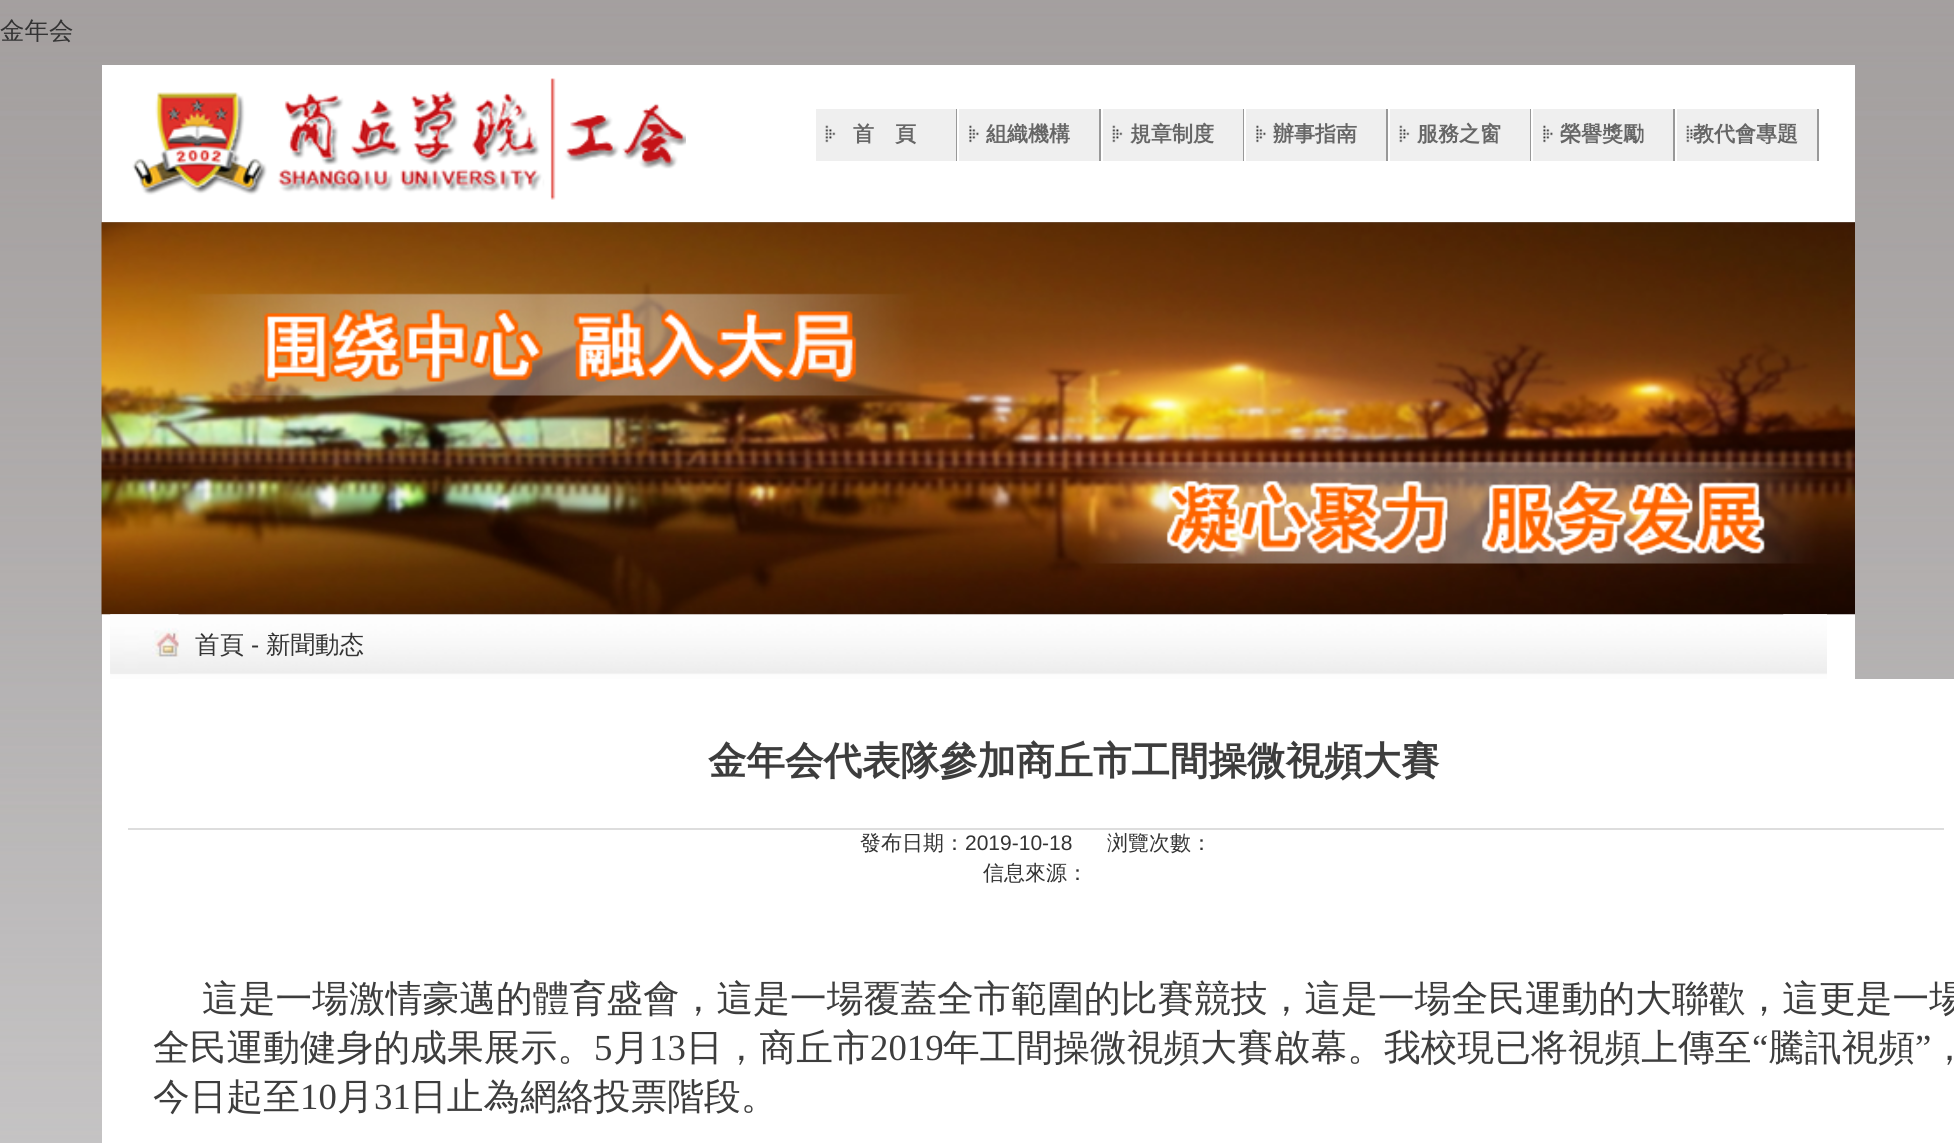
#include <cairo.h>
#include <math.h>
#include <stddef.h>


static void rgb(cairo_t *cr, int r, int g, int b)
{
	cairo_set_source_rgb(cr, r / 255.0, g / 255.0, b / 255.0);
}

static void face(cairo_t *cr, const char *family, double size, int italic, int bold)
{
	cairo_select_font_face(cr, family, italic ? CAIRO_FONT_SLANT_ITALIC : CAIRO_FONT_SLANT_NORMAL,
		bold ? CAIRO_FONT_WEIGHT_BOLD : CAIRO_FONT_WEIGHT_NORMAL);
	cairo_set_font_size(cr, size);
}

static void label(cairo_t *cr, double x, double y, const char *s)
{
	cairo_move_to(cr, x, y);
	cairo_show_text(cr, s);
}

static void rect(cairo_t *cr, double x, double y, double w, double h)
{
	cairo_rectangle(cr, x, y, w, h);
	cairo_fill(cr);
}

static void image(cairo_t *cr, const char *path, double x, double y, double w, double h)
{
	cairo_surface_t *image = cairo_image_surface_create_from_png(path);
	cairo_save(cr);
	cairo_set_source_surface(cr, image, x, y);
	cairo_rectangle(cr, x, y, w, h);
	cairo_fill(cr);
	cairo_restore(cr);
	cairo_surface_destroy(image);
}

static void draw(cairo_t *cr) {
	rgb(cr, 255, 255, 255);
	cairo_paint(cr);
	image(cr, "image0.png", 0, 0, 1954, 1143);
	face(cr, "WenQuanYi Zen Hei Medium", 24.5, 0, 0);
	rgb(cr, 51, 51, 51);
	label(cr, 0, 39, "金年会");
	rgb(cr, 255, 255, 255);
	rect(cr, 102, 65, 1753, 157);
	image(cr, "image1.png", 132, 78, 554, 122);
	rgb(cr, 239, 239, 239);
	rect(cr, 816, 109, 140, 52);
	image(cr, "image2.png", 825, 125, 11, 18);
	rgb(cr, 153, 153, 153);
	rect(cr, 956, 109, 1, 52);
	face(cr, "WenQuanYi Zen Hei", 21, 0, 1);
	rgb(cr, 102, 102, 102);
	label(cr, 853, 141, "首　頁");
	rgb(cr, 239, 239, 239);
	rect(cr, 959, 109, 140, 52);
	image(cr, "image3.png", 969, 125, 10, 18);
	rgb(cr, 153, 153, 153);
	rect(cr, 1099, 109, 2, 52);
	rgb(cr, 102, 102, 102);
	label(cr, 986, 141, "組織機構");
	rgb(cr, 239, 239, 239);
	rect(cr, 1103, 109, 140, 52);
	image(cr, "image2.png", 1112, 125, 11, 18);
	rgb(cr, 153, 153, 153);
	rect(cr, 1243, 109, 1, 52);
	rgb(cr, 102, 102, 102);
	label(cr, 1130, 141, "規章制度");
	rgb(cr, 239, 239, 239);
	rect(cr, 1246, 109, 140, 52);
	image(cr, "image3.png", 1256, 125, 10, 18);
	rgb(cr, 153, 153, 153);
	rect(cr, 1386, 109, 2, 52);
	rgb(cr, 102, 102, 102);
	label(cr, 1273, 141, "辦事指南");
	rgb(cr, 239, 239, 239);
	rect(cr, 1390, 109, 140, 52);
	image(cr, "image2.png", 1399, 125, 11, 18);
	rgb(cr, 153, 153, 153);
	rect(cr, 1530, 109, 1, 52);
	rgb(cr, 102, 102, 102);
	label(cr, 1417, 141, "服務之窗");
	rgb(cr, 239, 239, 239);
	rect(cr, 1533, 109, 140, 52);
	image(cr, "image3.png", 1543, 125, 10, 18);
	rgb(cr, 153, 153, 153);
	rect(cr, 1673, 109, 2, 52);
	rgb(cr, 102, 102, 102);
	label(cr, 1560, 141, "榮譽獎勵");
	rgb(cr, 239, 239, 239);
	rect(cr, 1677, 109, 140, 52);
	image(cr, "image2.png", 1686, 125, 11, 18);
	rgb(cr, 153, 153, 153);
	rect(cr, 1817, 109, 2, 52);
	rgb(cr, 102, 102, 102);
	label(cr, 1693, 141, "教代會專題");
	rgb(cr, 255, 255, 255);
	rect(cr, 102, 614, 1753, 529);
	image(cr, "image5.png", 110, 614, 1717, 65);
	image(cr, "image4.png", 101, 222, 1754, 393);
	image(cr, "image6.png", 110, 614, 69, 60);
	image(cr, "image7.png", 1783, 614, 44, 1);
	face(cr, "WenQuanYi Zen Hei Medium", 24.5, 0, 0);
	rgb(cr, 51, 51, 51);
	label(cr, 195, 653, "首頁");
	face(cr, "Liberation Sans", 24.5, 0, 0);
	label(cr, 251, 653, "-");
	face(cr, "WenQuanYi Zen Hei Medium", 24.5, 0, 0);
	label(cr, 266, 653, "新聞動态");
	rgb(cr, 255, 255, 255);
	rect(cr, 1855, 679, 99, 464);
	face(cr, "WenQuanYi Zen Hei", 38.5, 0, 1);
	rgb(cr, 61, 61, 61);
	label(cr, 708, 774, "金年会代表隊參加商丘市工間操微視頻大賽");
	rgb(cr, 221, 221, 221);
	rect(cr, 128, 828, 1816, 2);
	face(cr, "WenQuanYi Zen Hei Medium", 21, 0, 0);
	rgb(cr, 51, 51, 51);
	label(cr, 860, 850, "發布日期：");
	face(cr, "Liberation Sans", 21, 0, 0);
	label(cr, 965, 850, "2019-10-18");
	face(cr, "WenQuanYi Zen Hei Medium", 21, 0, 0);
	label(cr, 1107, 850, "浏覽次數：");
	label(cr, 983, 880, "信息來源：");
	face(cr, "WenQuanYi Zen Hei Medium", 36.75, 0, 0);
	rgb(cr, 61, 61, 61);
	label(cr, 202, 1011, "這是一場激情豪邁的體育盛會，這是一場覆蓋全市範圍的比賽競技，這是一場全民運動的大聯歡，這更是一場");
	label(cr, 153, 1060, "全民運動健身的成果展示。");
	face(cr, "Liberation Serif", 36.75, 0, 0);
	label(cr, 594, 1060, "5");
	face(cr, "WenQuanYi Zen Hei Medium", 36.75, 0, 0);
	label(cr, 613, 1060, "月");
	face(cr, "Liberation Serif", 36.75, 0, 0);
	label(cr, 649, 1060, "13");
	face(cr, "WenQuanYi Zen Hei Medium", 36.75, 0, 0);
	label(cr, 686, 1060, "日，商丘市");
	face(cr, "Liberation Serif", 36.75, 0, 0);
	label(cr, 870, 1060, "2019");
	face(cr, "WenQuanYi Zen Hei Medium", 36.75, 0, 0);
	label(cr, 943, 1060, "年工間操微視頻大賽啟幕。我校現已将視頻上傳至");
	face(cr, "Liberation Serif", 36.75, 0, 0);
	label(cr, 1752, 1060, "“");
	face(cr, "WenQuanYi Zen Hei Medium", 36.75, 0, 0);
	label(cr, 1768, 1060, "騰訊視頻");
	face(cr, "Liberation Serif", 36.75, 0, 0);
	label(cr, 1915, 1060, "”");
	face(cr, "WenQuanYi Zen Hei Medium", 36.75, 0, 0);
	label(cr, 1931, 1060, "，");
	label(cr, 153, 1109, "今日起至");
	face(cr, "Liberation Serif", 36.75, 0, 0);
	label(cr, 300, 1109, "10");
	face(cr, "WenQuanYi Zen Hei Medium", 36.75, 0, 0);
	label(cr, 337, 1109, "月");
	face(cr, "Liberation Serif", 36.75, 0, 0);
	label(cr, 374, 1109, "31");
	face(cr, "WenQuanYi Zen Hei Medium", 36.75, 0, 0);
	label(cr, 410, 1109, "日止為網絡投票階段。");
}

int main(void) {
	cairo_surface_t *surface = cairo_image_surface_create(CAIRO_FORMAT_RGB24, 1954, 1143);
	cairo_t *cr = cairo_create(surface);
	cairo_font_options_t *options = cairo_font_options_create();
	cairo_font_options_set_hint_metrics(options, CAIRO_HINT_METRICS_OFF);
	cairo_font_options_set_hint_style(options, CAIRO_HINT_STYLE_NONE);
	cairo_set_font_options(cr, options);
	cairo_set_miter_limit(cr, 4);
	draw(cr);
	cairo_surface_write_to_png(surface, "render.png");
	cairo_font_options_destroy(options);
	cairo_destroy(cr);
	cairo_surface_destroy(surface);
	return 0;
}
